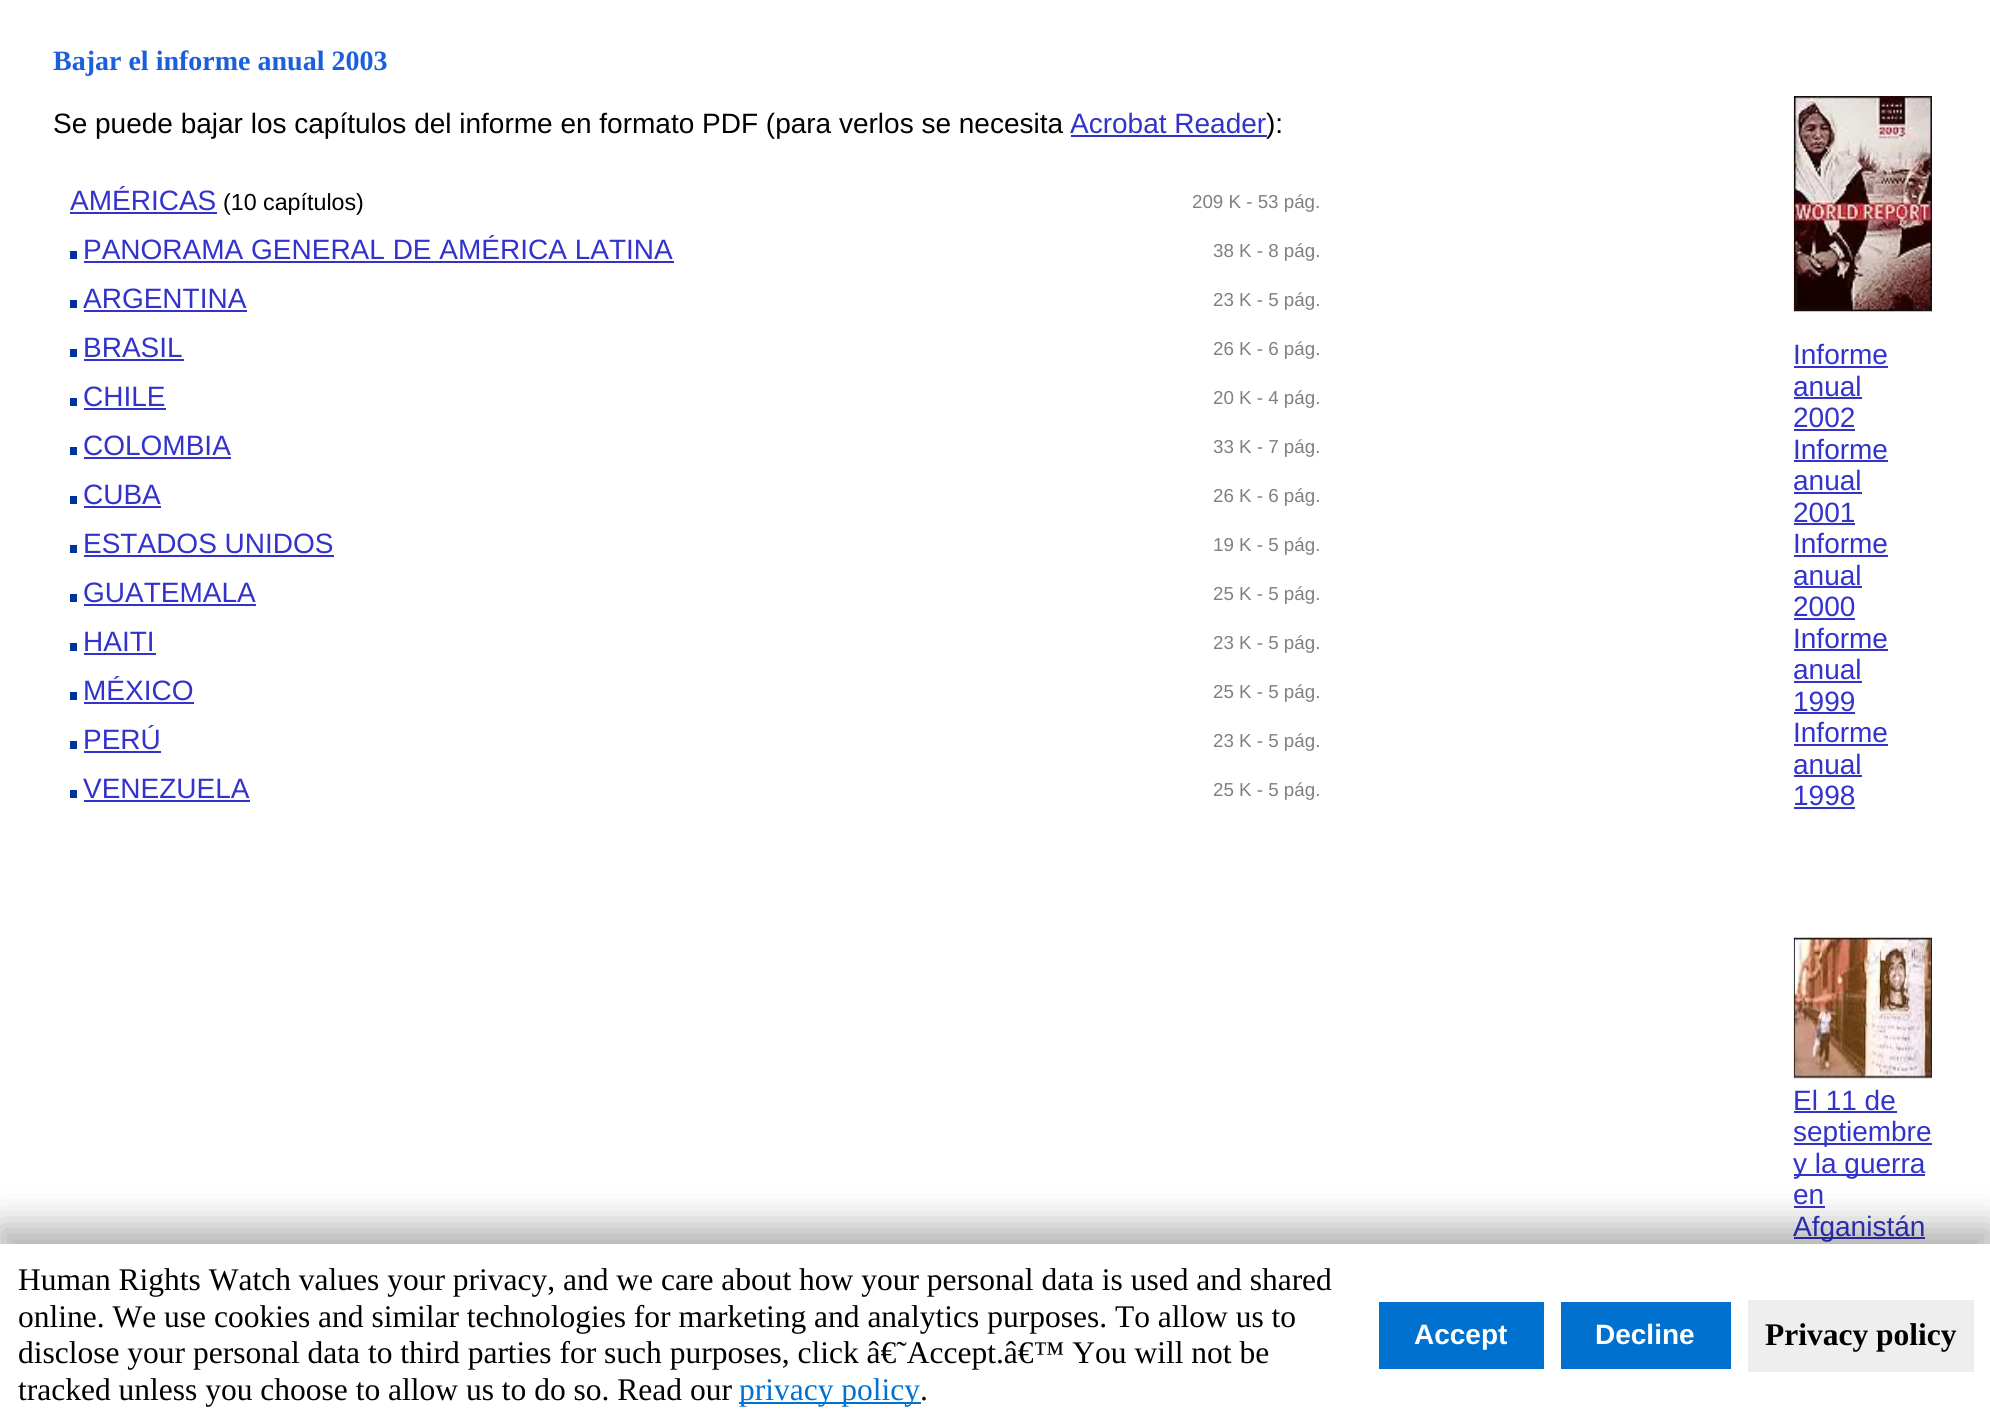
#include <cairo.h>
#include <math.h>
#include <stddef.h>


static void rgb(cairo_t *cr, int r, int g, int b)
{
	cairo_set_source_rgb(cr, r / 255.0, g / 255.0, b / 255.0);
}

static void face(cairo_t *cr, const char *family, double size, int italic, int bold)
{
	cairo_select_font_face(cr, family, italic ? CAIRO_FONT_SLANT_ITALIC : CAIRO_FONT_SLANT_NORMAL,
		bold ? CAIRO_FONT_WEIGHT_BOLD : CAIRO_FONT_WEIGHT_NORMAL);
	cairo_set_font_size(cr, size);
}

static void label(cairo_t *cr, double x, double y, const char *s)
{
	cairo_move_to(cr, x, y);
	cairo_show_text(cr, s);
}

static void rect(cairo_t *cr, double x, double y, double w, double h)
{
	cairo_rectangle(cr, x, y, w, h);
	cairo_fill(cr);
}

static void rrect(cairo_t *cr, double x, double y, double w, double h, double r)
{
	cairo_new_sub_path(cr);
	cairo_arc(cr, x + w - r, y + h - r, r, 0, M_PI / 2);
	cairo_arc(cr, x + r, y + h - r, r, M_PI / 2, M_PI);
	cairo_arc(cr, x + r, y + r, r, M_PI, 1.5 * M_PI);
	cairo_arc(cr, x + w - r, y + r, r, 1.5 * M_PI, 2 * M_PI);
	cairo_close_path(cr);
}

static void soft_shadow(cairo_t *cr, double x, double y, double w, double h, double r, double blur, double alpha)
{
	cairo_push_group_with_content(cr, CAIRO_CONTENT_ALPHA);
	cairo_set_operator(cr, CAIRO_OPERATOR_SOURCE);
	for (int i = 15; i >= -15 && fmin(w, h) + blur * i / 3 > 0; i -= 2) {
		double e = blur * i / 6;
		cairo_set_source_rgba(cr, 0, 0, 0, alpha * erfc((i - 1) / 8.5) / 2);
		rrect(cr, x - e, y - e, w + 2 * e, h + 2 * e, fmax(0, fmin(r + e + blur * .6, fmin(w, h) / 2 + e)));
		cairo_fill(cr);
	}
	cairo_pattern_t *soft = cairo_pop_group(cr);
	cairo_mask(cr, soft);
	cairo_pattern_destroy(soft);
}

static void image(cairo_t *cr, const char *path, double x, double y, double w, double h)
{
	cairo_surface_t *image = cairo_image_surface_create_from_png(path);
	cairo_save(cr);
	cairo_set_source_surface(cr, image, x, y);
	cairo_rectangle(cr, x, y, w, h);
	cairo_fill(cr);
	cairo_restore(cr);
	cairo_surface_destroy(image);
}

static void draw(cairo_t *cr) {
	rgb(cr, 255, 255, 255);
	cairo_paint(cr);
	face(cr, "Liberation Serif", 28, 0, 1);
	rgb(cr, 27, 95, 219);
	label(cr, 53, 70, "Bajar el informe anual 2003");
	face(cr, "Liberation Sans", 28, 0, 0);
	rgb(cr, 0, 0, 0);
	label(cr, 53, 133, "Se puede bajar los capítulos del informe en formato PDF (para verlos se necesita");
	rgb(cr, 51, 51, 204);
	label(cr, 1070, 133, "Acrobat Reader");
	rect(cr, 1071, 135, 196, 2);
	rgb(cr, 0, 0, 0);
	label(cr, 1266, 133, "):");
	cairo_save(cr);
	cairo_rectangle(cr, 70, 186, 1017, 31);
	cairo_clip(cr);
	rgb(cr, 51, 51, 204);
	label(cr, 70, 210, "AMÉRICAS");
	cairo_restore(cr);
	rgb(cr, 51, 51, 204);
	rect(cr, 70, 212, 147, 2);
	face(cr, "Liberation Sans", 23.25, 0, 0);
	rgb(cr, 0, 0, 0);
	label(cr, 223, 210, "(10 capítulos)");
	face(cr, "Liberation Sans", 18.75, 0, 0);
	rgb(cr, 128, 128, 128);
	label(cr, 1192, 208, "209 K - 53 pág.");
	rgb(cr, 0, 51, 153);
	rect(cr, 70, 251, 7, 8);
	cairo_save(cr);
	cairo_rectangle(cr, 70, 235, 1017, 31);
	cairo_clip(cr);
	face(cr, "Liberation Sans", 28, 0, 0);
	rgb(cr, 51, 51, 204);
	label(cr, 83, 259, "PANORAMA GENERAL DE AMÉRICA LATINA");
	cairo_restore(cr);
	rgb(cr, 51, 51, 204);
	rect(cr, 84, 261, 590, 2);
	rgb(cr, 128, 128, 128);
	label(cr, 1213, 257, "38 K - 8 pág.");
	rgb(cr, 0, 51, 153);
	rect(cr, 70, 300, 7, 8);
	face(cr, "Liberation Sans", 28, 0, 0);
	rgb(cr, 51, 51, 204);
	label(cr, 83, 308, "ARGENTINA");
	rect(cr, 84, 310, 163, 2);
	face(cr, "Liberation Sans", 18.75, 0, 0);
	rgb(cr, 128, 128, 128);
	label(cr, 1213, 306, "23 K - 5 pág.");
	rgb(cr, 0, 51, 153);
	rect(cr, 70, 349, 7, 8);
	face(cr, "Liberation Sans", 28, 0, 0);
	rgb(cr, 51, 51, 204);
	label(cr, 83, 357, "BRASIL");
	rect(cr, 84, 359, 100, 2);
	face(cr, "Liberation Sans", 18.75, 0, 0);
	rgb(cr, 128, 128, 128);
	label(cr, 1213, 355, "26 K - 6 pág.");
	rgb(cr, 0, 51, 153);
	rect(cr, 70, 398, 7, 8);
	face(cr, "Liberation Sans", 28, 0, 0);
	rgb(cr, 51, 51, 204);
	label(cr, 83, 406, "CHILE");
	rect(cr, 84, 408, 82, 2);
	face(cr, "Liberation Sans", 18.75, 0, 0);
	rgb(cr, 128, 128, 128);
	label(cr, 1213, 404, "20 K - 4 pág.");
	rgb(cr, 0, 51, 153);
	rect(cr, 70, 447, 7, 8);
	face(cr, "Liberation Sans", 28, 0, 0);
	rgb(cr, 51, 51, 204);
	label(cr, 83, 455, "COLOMBIA");
	rect(cr, 84, 457, 147, 2);
	face(cr, "Liberation Sans", 18.75, 0, 0);
	rgb(cr, 128, 128, 128);
	label(cr, 1213, 453, "33 K - 7 pág.");
	rgb(cr, 0, 51, 153);
	rect(cr, 70, 496, 7, 8);
	face(cr, "Liberation Sans", 28, 0, 0);
	rgb(cr, 51, 51, 204);
	label(cr, 83, 504, "CUBA");
	rect(cr, 84, 506, 77, 2);
	face(cr, "Liberation Sans", 18.75, 0, 0);
	rgb(cr, 128, 128, 128);
	label(cr, 1213, 502, "26 K - 6 pág.");
	rgb(cr, 0, 51, 153);
	rect(cr, 70, 545, 7, 8);
	face(cr, "Liberation Sans", 28, 0, 0);
	rgb(cr, 51, 51, 204);
	label(cr, 83, 553, "ESTADOS UNIDOS");
	rect(cr, 84, 555, 250, 2);
	face(cr, "Liberation Sans", 18.75, 0, 0);
	rgb(cr, 128, 128, 128);
	label(cr, 1213, 551, "19 K - 5 pág.");
	rgb(cr, 0, 51, 153);
	rect(cr, 70, 594, 7, 8);
	face(cr, "Liberation Sans", 28, 0, 0);
	rgb(cr, 51, 51, 204);
	label(cr, 83, 602, "GUATEMALA");
	rect(cr, 84, 604, 172, 2);
	face(cr, "Liberation Sans", 18.75, 0, 0);
	rgb(cr, 128, 128, 128);
	label(cr, 1213, 600, "25 K - 5 pág.");
	rgb(cr, 0, 51, 153);
	rect(cr, 70, 643, 7, 8);
	face(cr, "Liberation Sans", 28, 0, 0);
	rgb(cr, 51, 51, 204);
	label(cr, 83, 651, "HAITI");
	rect(cr, 84, 653, 72, 2);
	face(cr, "Liberation Sans", 18.75, 0, 0);
	rgb(cr, 128, 128, 128);
	label(cr, 1213, 649, "23 K - 5 pág.");
	rgb(cr, 0, 51, 153);
	rect(cr, 70, 692, 7, 8);
	cairo_save(cr);
	cairo_rectangle(cr, 70, 676, 1017, 31);
	cairo_clip(cr);
	face(cr, "Liberation Sans", 28, 0, 0);
	rgb(cr, 51, 51, 204);
	label(cr, 83, 700, "MÉXICO");
	cairo_restore(cr);
	rgb(cr, 51, 51, 204);
	rect(cr, 84, 702, 110, 2);
	rgb(cr, 128, 128, 128);
	label(cr, 1213, 698, "25 K - 5 pág.");
	rgb(cr, 0, 51, 153);
	rect(cr, 70, 741, 7, 8);
	cairo_save(cr);
	cairo_rectangle(cr, 70, 725, 1017, 31);
	cairo_clip(cr);
	face(cr, "Liberation Sans", 28, 0, 0);
	rgb(cr, 51, 51, 204);
	label(cr, 83, 749, "PERÚ");
	cairo_restore(cr);
	rgb(cr, 51, 51, 204);
	rect(cr, 84, 751, 77, 2);
	rgb(cr, 128, 128, 128);
	label(cr, 1213, 747, "23 K - 5 pág.");
	rgb(cr, 0, 51, 153);
	rect(cr, 70, 790, 7, 8);
	face(cr, "Liberation Sans", 28, 0, 0);
	rgb(cr, 51, 51, 204);
	label(cr, 83, 798, "VENEZUELA");
	rect(cr, 84, 800, 166, 2);
	face(cr, "Liberation Sans", 18.75, 0, 0);
	rgb(cr, 128, 128, 128);
	label(cr, 1213, 796, "25 K - 5 pág.");
	image(cr, "image0.png", 1793, 96, 139, 216);
	face(cr, "Liberation Sans", 28, 0, 0);
	rgb(cr, 51, 51, 204);
	label(cr, 1793, 364, "Informe");
	rect(cr, 1794, 366, 94, 2);
	label(cr, 1793, 396, "anual");
	rect(cr, 1794, 397, 68, 2);
	label(cr, 1793, 427, "2002");
	rect(cr, 1794, 429, 61, 2);
	label(cr, 1793, 459, "Informe");
	rect(cr, 1794, 460, 94, 2);
	label(cr, 1793, 490, "anual");
	rect(cr, 1794, 492, 68, 2);
	label(cr, 1793, 522, "2001");
	rect(cr, 1794, 523, 61, 2);
	label(cr, 1793, 553, "Informe");
	rect(cr, 1794, 555, 94, 2);
	label(cr, 1793, 585, "anual");
	rect(cr, 1794, 586, 68, 2);
	label(cr, 1793, 616, "2000");
	rect(cr, 1794, 618, 61, 2);
	label(cr, 1793, 648, "Informe");
	rect(cr, 1794, 649, 94, 2);
	label(cr, 1793, 679, "anual");
	rect(cr, 1794, 681, 68, 2);
	label(cr, 1793, 711, "1999");
	rect(cr, 1794, 712, 61, 2);
	label(cr, 1793, 742, "Informe");
	rect(cr, 1794, 744, 94, 2);
	label(cr, 1793, 774, "anual");
	rect(cr, 1794, 775, 68, 2);
	label(cr, 1793, 805, "1998");
	rect(cr, 1794, 807, 61, 2);
	image(cr, "image1.png", 1793, 937, 139, 142);
	label(cr, 1793, 1110, "El 11 de");
	rect(cr, 1794, 1111, 103, 2);
	rect(cr, 1794, 1143, 138, 2);
	label(cr, 1793, 1141, "septiembre");
	rect(cr, 1794, 1174, 131, 2);
	label(cr, 1793, 1173, "y la guerra");
	label(cr, 1793, 1204, "en");
	rect(cr, 1794, 1206, 31, 2);
	rect(cr, 1794, 1237, 131, 2);
	label(cr, 1793, 1236, "Afganistán");
	rgb(cr, 0, 0, 0);
	soft_shadow(cr, -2, 1225, 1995, 186, 0, 17.5, 0.3);
	rgb(cr, 255, 255, 255);
	rect(cr, 0, 1244, 1990, 182);
	face(cr, "Liberation Serif", 31.5, 0, 0);
	rgb(cr, 0, 0, 0);
	label(cr, 18, 1290, "Human Rights Watch values your privacy, and we care about how your personal data is used and shared");
	label(cr, 18, 1327, "online. We use cookies and similar technologies for marketing and analytics purposes. To allow us to");
	label(cr, 18, 1363, "disclose your personal data to third parties for such purposes, click â€˜Accept.â€™ You will not be");
	label(cr, 18, 1400, "tracked unless you choose to allow us to do so. Read our");
	rgb(cr, 0, 113, 206);
	rect(cr, 739, 1402, 182, 2);
	label(cr, 739, 1400, "privacy policy");
	rgb(cr, 0, 0, 0);
	label(cr, 920, 1400, ".");
	rgb(cr, 0, 113, 206);
	rect(cr, 1379, 1302, 165, 67);
	face(cr, "Liberation Sans", 28, 0, 1);
	rgb(cr, 255, 255, 255);
	label(cr, 1414, 1344, "Accept");
	rgb(cr, 0, 113, 206);
	rect(cr, 1561, 1302, 170, 67);
	rgb(cr, 255, 255, 255);
	label(cr, 1595, 1344, "Decline");
	rgb(cr, 238, 238, 238);
	rect(cr, 1748, 1300, 226, 72);
	face(cr, "Liberation Serif", 31.5, 0, 1);
	rgb(cr, 0, 0, 0);
	label(cr, 1765, 1345, "Privacy policy");
}

int main(void) {
	cairo_surface_t *surface = cairo_image_surface_create(CAIRO_FORMAT_RGB24, 1990, 1426);
	cairo_t *cr = cairo_create(surface);
	cairo_font_options_t *options = cairo_font_options_create();
	cairo_font_options_set_hint_metrics(options, CAIRO_HINT_METRICS_OFF);
	cairo_font_options_set_hint_style(options, CAIRO_HINT_STYLE_NONE);
	cairo_set_font_options(cr, options);
	cairo_set_miter_limit(cr, 4);
	draw(cr);
	cairo_surface_write_to_png(surface, "render.png");
	cairo_font_options_destroy(options);
	cairo_destroy(cr);
	cairo_surface_destroy(surface);
	return 0;
}
